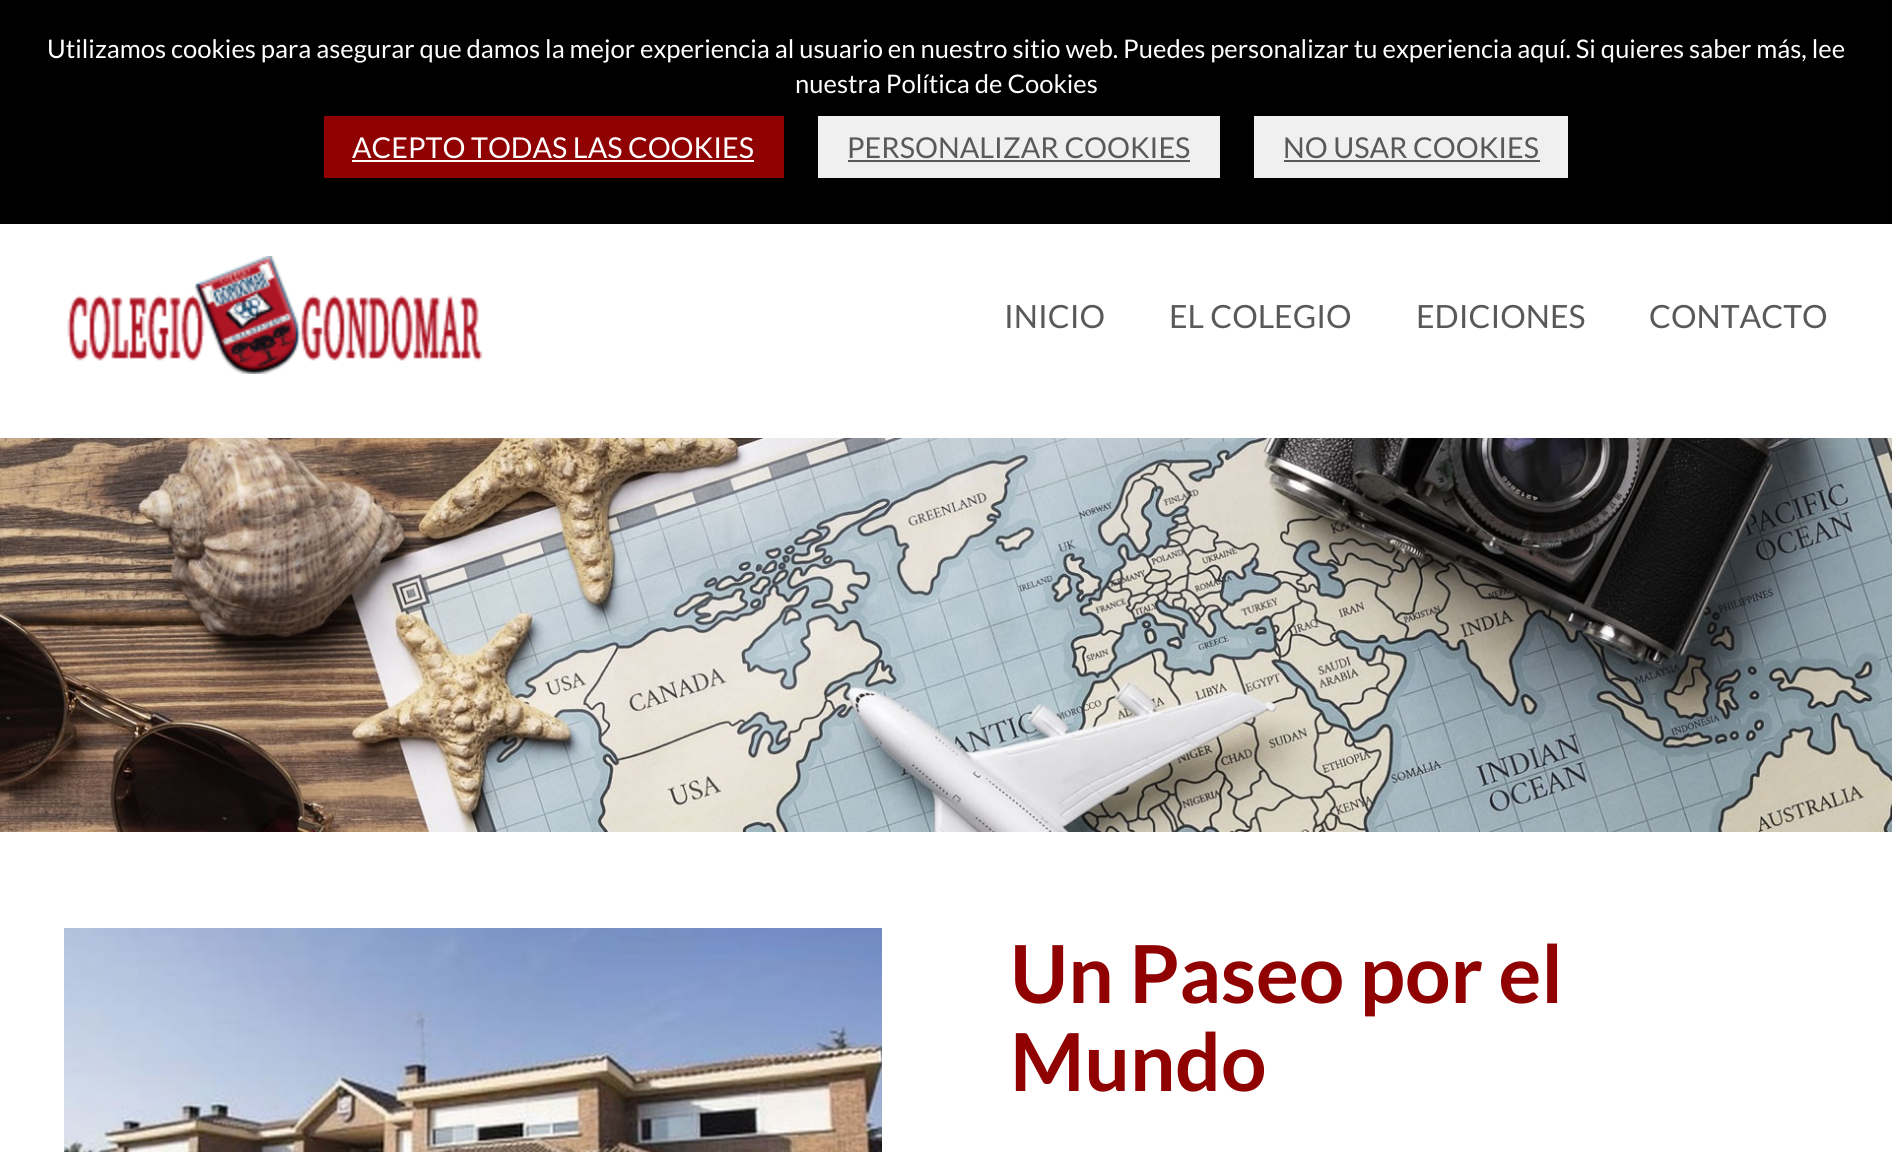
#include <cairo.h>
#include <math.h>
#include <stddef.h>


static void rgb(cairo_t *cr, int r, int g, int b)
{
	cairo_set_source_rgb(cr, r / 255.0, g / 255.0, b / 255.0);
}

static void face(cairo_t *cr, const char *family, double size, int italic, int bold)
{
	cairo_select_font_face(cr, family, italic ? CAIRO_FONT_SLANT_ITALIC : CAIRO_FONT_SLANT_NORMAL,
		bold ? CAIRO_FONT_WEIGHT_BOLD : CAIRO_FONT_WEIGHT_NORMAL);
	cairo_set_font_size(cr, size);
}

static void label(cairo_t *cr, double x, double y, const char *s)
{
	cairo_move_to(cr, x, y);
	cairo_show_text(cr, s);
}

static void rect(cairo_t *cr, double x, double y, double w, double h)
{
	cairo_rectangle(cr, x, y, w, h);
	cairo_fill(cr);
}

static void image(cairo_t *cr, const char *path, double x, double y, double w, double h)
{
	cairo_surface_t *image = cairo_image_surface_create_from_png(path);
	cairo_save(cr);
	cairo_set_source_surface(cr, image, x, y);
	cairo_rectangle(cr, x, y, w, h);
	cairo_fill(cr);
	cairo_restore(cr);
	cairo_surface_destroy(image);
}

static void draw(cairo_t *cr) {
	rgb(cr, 255, 255, 255);
	cairo_paint(cr);
	rgb(cr, 0, 0, 0);
	rect(cr, 0, 0, 1892, 224);
	face(cr, "Lato", 25.6, 0, 0);
	rgb(cr, 255, 255, 255);
	label(cr, 47, 58, "Utilizamos cookies para asegurar que damos la mejor experiencia al usuario en nuestro sitio web. Puedes personalizar tu experiencia aquí. Si quieres saber más, lee");
	label(cr, 795, 93, "nuestra Política de Cookies");
	rgb(cr, 144, 1, 1);
	rect(cr, 324, 116, 460, 62);
	face(cr, "Lato", 28.75, 0, 0);
	rgb(cr, 255, 255, 255);
	label(cr, 352, 158, "ACEPTO TODAS LAS COOKIES");
	rect(cr, 352, 160, 402, 2);
	rgb(cr, 240, 240, 240);
	rect(cr, 818, 116, 402, 62);
	rgb(cr, 90, 88, 88);
	label(cr, 847, 158, "PERSONALIZAR COOKIES");
	rect(cr, 848, 160, 342, 2);
	rgb(cr, 240, 240, 240);
	rect(cr, 1254, 116, 314, 62);
	rgb(cr, 90, 88, 88);
	label(cr, 1283, 158, "NO USAR COOKIES");
	rect(cr, 1284, 160, 256, 2);
	image(cr, "image0.png", 67, 256, 416, 118);
	face(cr, "Lato", 32, 0, 0);
	label(cr, 1004, 328, "INICIO");
	label(cr, 1169, 328, "EL COLEGIO");
	label(cr, 1416, 328, "EDICIONES");
	label(cr, 1649, 328, "CONTACTO");
	image(cr, "image1.png", 0, 438, 1892, 394);
	image(cr, "image2.png", 64, 928, 818, 224);
	face(cr, "Lato", 80, 0, 1);
	rgb(cr, 144, 1, 1);
	label(cr, 1010, 1003, "Un Paseo por el");
	label(cr, 1010, 1091, "Mundo");
}

int main(void) {
	cairo_surface_t *surface = cairo_image_surface_create(CAIRO_FORMAT_RGB24, 1892, 1152);
	cairo_t *cr = cairo_create(surface);
	cairo_font_options_t *options = cairo_font_options_create();
	cairo_font_options_set_hint_metrics(options, CAIRO_HINT_METRICS_OFF);
	cairo_font_options_set_hint_style(options, CAIRO_HINT_STYLE_NONE);
	cairo_set_font_options(cr, options);
	cairo_set_miter_limit(cr, 4);
	draw(cr);
	cairo_surface_write_to_png(surface, "render.png");
	cairo_font_options_destroy(options);
	cairo_destroy(cr);
	cairo_surface_destroy(surface);
	return 0;
}
